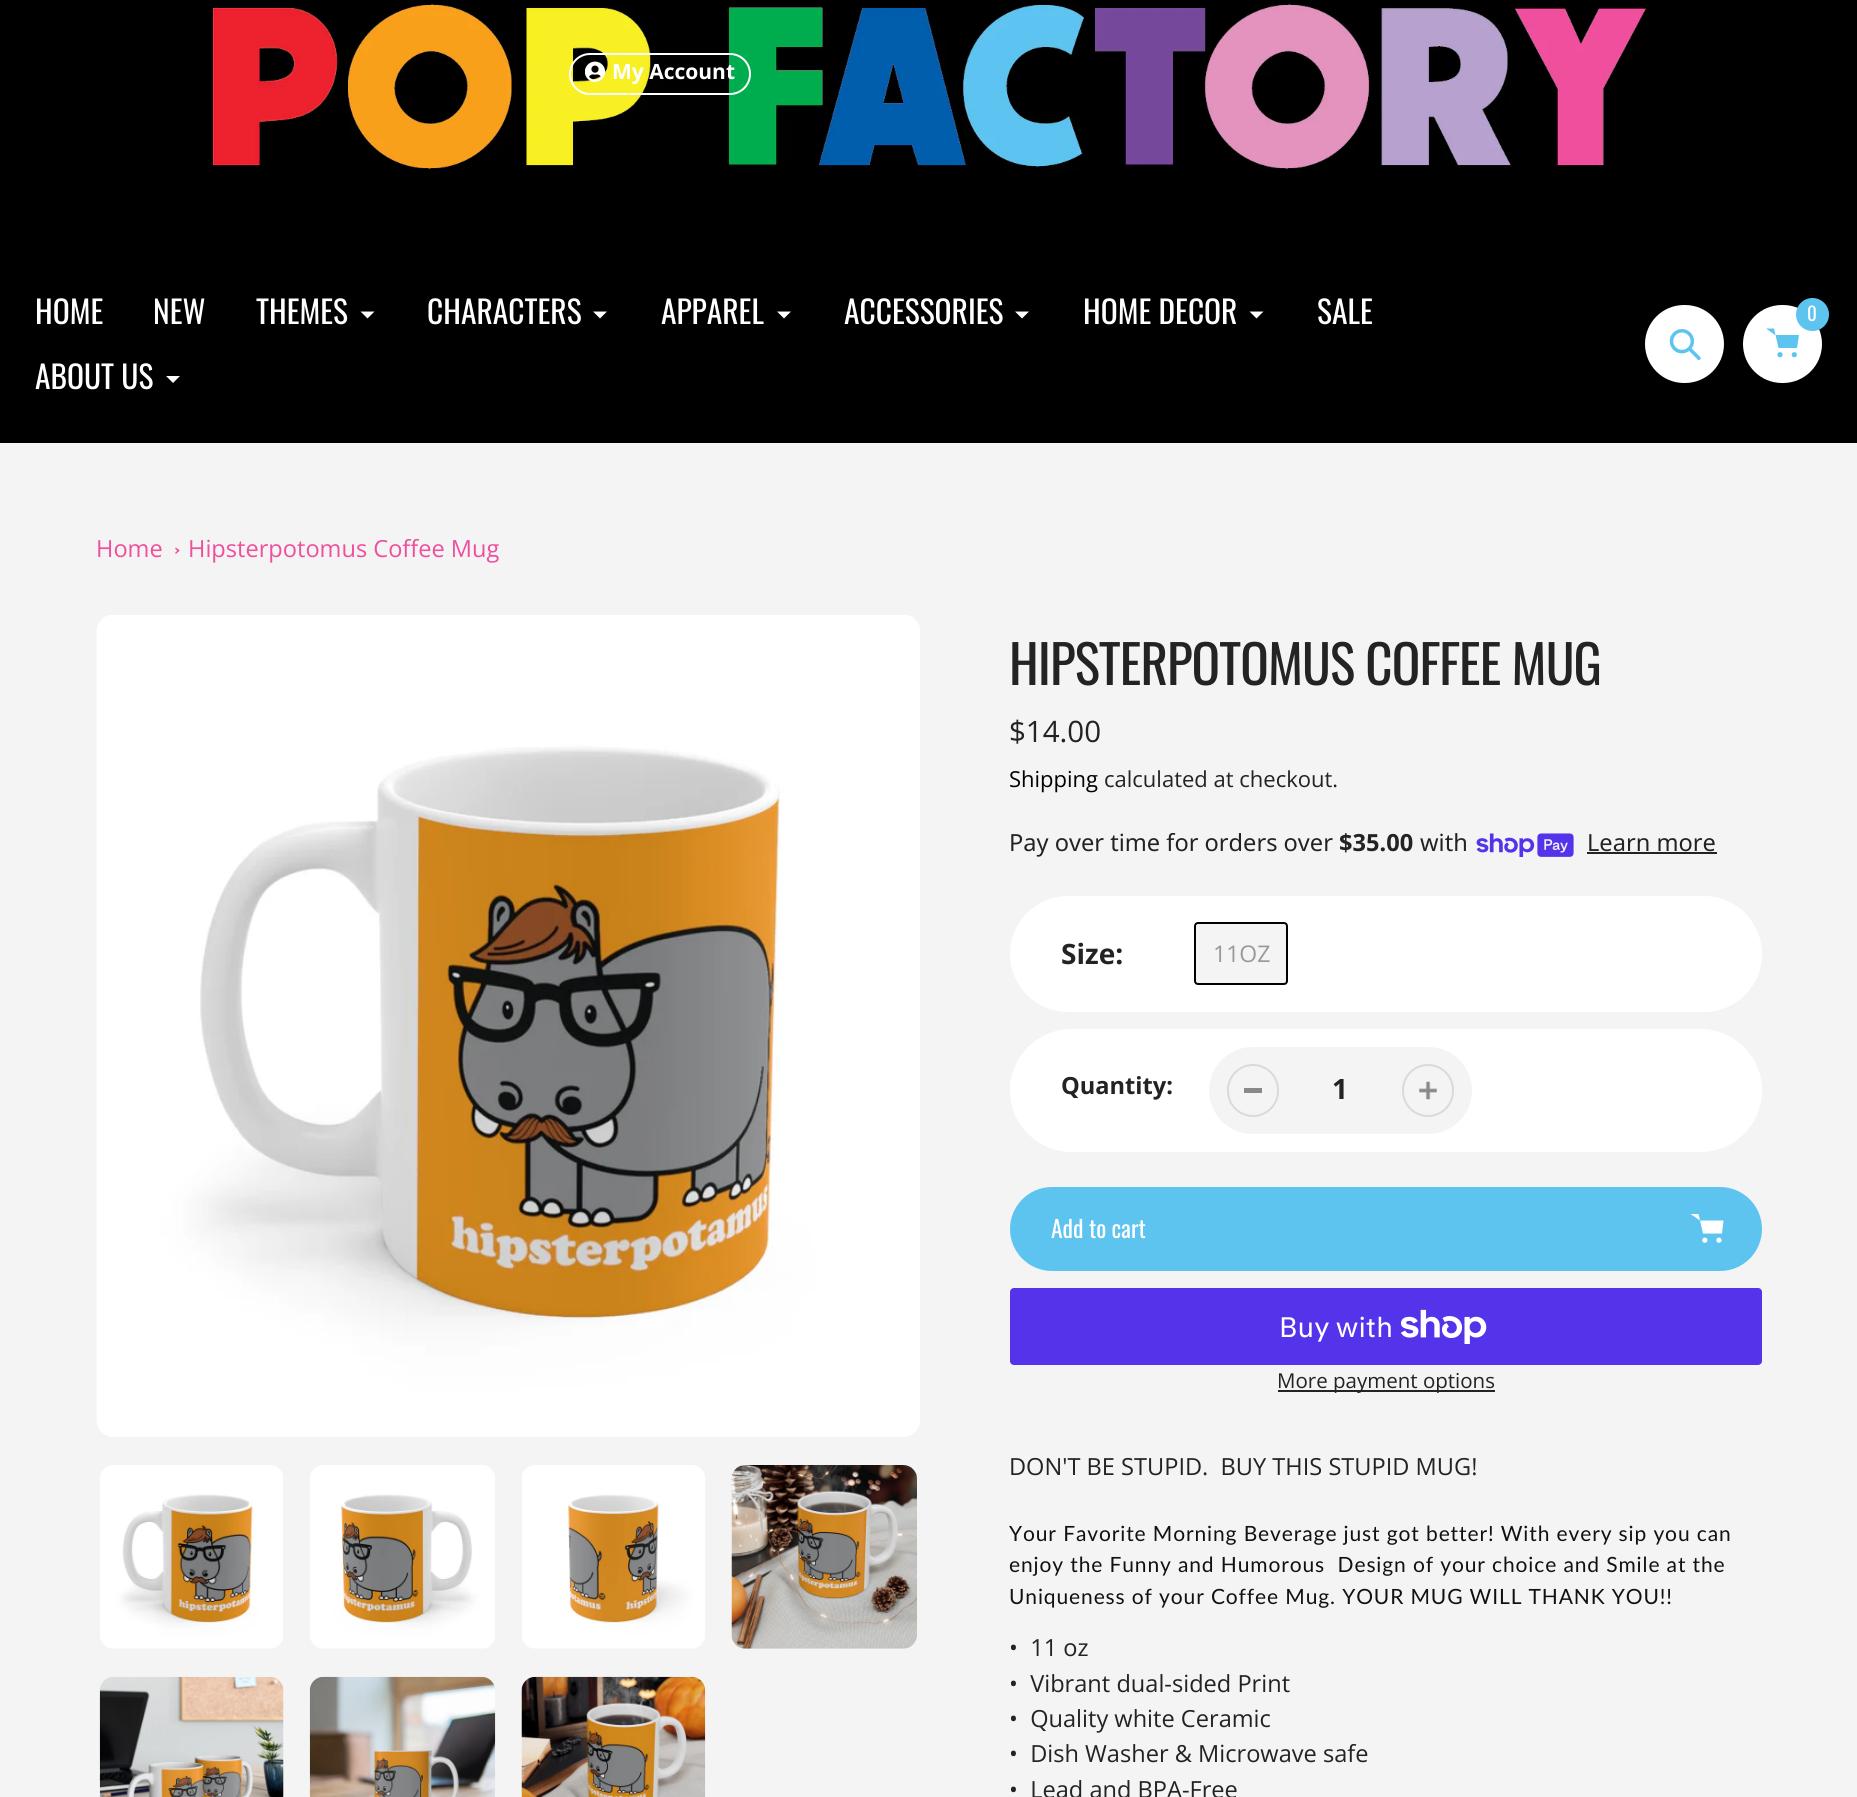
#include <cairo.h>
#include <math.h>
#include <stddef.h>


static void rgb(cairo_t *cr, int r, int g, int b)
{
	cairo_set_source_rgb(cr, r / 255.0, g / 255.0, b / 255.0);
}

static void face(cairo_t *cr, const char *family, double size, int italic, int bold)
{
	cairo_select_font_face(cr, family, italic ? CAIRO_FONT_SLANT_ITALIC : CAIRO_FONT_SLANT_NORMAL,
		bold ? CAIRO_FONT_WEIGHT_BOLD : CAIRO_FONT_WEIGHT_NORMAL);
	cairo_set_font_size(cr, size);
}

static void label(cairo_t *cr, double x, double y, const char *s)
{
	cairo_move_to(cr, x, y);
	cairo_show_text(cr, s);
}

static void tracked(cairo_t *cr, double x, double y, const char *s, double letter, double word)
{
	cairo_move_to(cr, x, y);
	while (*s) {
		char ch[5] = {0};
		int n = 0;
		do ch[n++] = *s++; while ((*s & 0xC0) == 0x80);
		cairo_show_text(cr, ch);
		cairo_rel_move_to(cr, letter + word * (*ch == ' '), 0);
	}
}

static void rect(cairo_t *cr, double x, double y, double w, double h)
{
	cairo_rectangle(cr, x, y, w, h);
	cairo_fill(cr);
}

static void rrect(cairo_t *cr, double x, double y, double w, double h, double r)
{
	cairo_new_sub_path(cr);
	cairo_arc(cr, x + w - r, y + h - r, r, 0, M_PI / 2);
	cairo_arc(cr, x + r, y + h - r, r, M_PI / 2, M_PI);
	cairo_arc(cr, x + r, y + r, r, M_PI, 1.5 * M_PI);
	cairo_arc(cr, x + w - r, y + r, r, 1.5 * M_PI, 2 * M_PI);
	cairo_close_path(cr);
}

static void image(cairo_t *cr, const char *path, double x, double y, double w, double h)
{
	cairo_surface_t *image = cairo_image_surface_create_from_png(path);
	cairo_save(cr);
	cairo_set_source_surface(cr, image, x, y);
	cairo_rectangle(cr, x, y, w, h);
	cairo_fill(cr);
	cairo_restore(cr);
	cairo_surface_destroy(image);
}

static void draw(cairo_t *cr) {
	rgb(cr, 244, 244, 244);
	cairo_paint(cr);
	rgb(cr, 0, 0, 0);
	rect(cr, 0, 0, 1857, 443);
	image(cr, "image0.png", 211, 2, 1439, 170);
	rrect(cr, 570, 54, 180, 40, 20);
	rgb(cr, 255, 255, 255);
	cairo_stroke(cr);
	image(cr, "image1.png", 585, 61, 21, 21);
	face(cr, "Open Sans", 21, 0, 1);
	label(cr, 612, 79, "My Account");
	face(cr, "Oswald", 31.5, 0, 0);
	label(cr, 35, 324, "HOME");
	label(cr, 153, 324, "NEW");
	label(cr, 256, 324, "THEMES");
	cairo_new_path(cr);
	cairo_move_to(cr, 374.5, 311.5);
	cairo_line_to(cr, 367.5, 318.5);
	cairo_line_to(cr, 360.5, 311.5);
	cairo_fill(cr);
	label(cr, 427, 324, "CHARACTERS");
	cairo_new_path(cr);
	cairo_move_to(cr, 607, 311.5);
	cairo_line_to(cr, 600, 318.5);
	cairo_line_to(cr, 593, 311.5);
	cairo_fill(cr);
	label(cr, 661, 324, "APPAREL");
	cairo_new_path(cr);
	cairo_move_to(cr, 791, 311.5);
	cairo_line_to(cr, 784, 318.5);
	cairo_line_to(cr, 777, 311.5);
	cairo_fill(cr);
	label(cr, 844, 324, "ACCESSORIES");
	cairo_new_path(cr);
	cairo_move_to(cr, 1029, 311.5);
	cairo_line_to(cr, 1022, 318.5);
	cairo_line_to(cr, 1015, 311.5);
	cairo_fill(cr);
	label(cr, 1083, 324, "HOME DECOR");
	cairo_new_path(cr);
	cairo_move_to(cr, 1263.5, 311.5);
	cairo_line_to(cr, 1256.5, 318.5);
	cairo_line_to(cr, 1249.5, 311.5);
	cairo_fill(cr);
	label(cr, 1317, 324, "SALE");
	label(cr, 35, 389, "ABOUT US");
	cairo_new_path(cr);
	cairo_move_to(cr, 180, 376);
	cairo_line_to(cr, 173, 383);
	cairo_line_to(cr, 166, 376);
	cairo_fill(cr);
	rrect(cr, 1645, 305, 79, 78, 39);
	cairo_fill(cr);
	image(cr, "image2.png", 1669, 329, 32, 31);
	rrect(cr, 1743, 305, 79, 78, 39);
	cairo_fill(cr);
	rgb(cr, 93, 196, 240);
	cairo_set_fill_rule(cr, CAIRO_FILL_RULE_EVEN_ODD);
	cairo_new_path(cr);
	cairo_move_to(cr, 1775, 335);
	cairo_line_to(cr, 1799, 335);
	cairo_line_to(cr, 1797, 348);
	cairo_line_to(cr, 1778.5, 348);
	cairo_line_to(cr, 1774, 328.5);
	cairo_line_to(cr, 1766, 328.5);
	cairo_fill(cr);
	cairo_arc(cr, 1812.5, 314.5, 16.5, 0, 2 * M_PI);
	cairo_fill(cr);
	face(cr, "Oswald", 19, 0, 0);
	rgb(cr, 255, 255, 255);
	label(cr, 1807, 321, "0");
	rgb(cr, 93, 196, 240);
	cairo_new_path(cr);
	cairo_arc(cr, 1780, 354.7, 2.6, 0, 2 * M_PI);
	cairo_fill(cr);
	cairo_arc(cr, 1794.3, 354.7, 2.6, 0, 2 * M_PI);
	cairo_fill(cr);
	face(cr, "Open Sans", 23.6, 0, 0);
	rgb(cr, 239, 79, 157);
	label(cr, 96, 557, "Home");
	cairo_set_fill_rule(cr, CAIRO_FILL_RULE_WINDING);
	cairo_new_path(cr);
	cairo_move_to(cr, 176, 547.5);
	cairo_line_to(cr, 179.5, 550.5);
	cairo_line_to(cr, 178.5, 552);
	cairo_line_to(cr, 175, 548.5);
	cairo_close_path(cr);
	cairo_fill(cr);
	cairo_new_path(cr);
	cairo_move_to(cr, 178.5, 549.5);
	cairo_line_to(cr, 179.5, 550.5);
	cairo_line_to(cr, 176, 554);
	cairo_line_to(cr, 175, 553);
	cairo_close_path(cr);
	cairo_fill(cr);
	label(cr, 188, 557, "Hipsterpotomus Coffee Mug");
	image(cr, "image3.png", 96, 615, 824, 822);
	image(cr, "image4.png", 100, 1465, 183, 184);
	image(cr, "image5.png", 310, 1465, 185, 184);
	image(cr, "image6.png", 522, 1465, 183, 184);
	image(cr, "image7.png", 731, 1465, 186, 184);
	image(cr, "image8.png", 99, 1676, 185, 121);
	image(cr, "image9.png", 309, 1676, 187, 121);
	image(cr, "image10.png", 521, 1676, 185, 121);
	face(cr, "Oswald", 53, 0, 0);
	rgb(cr, 35, 35, 35);
	tracked(cr, 1009, 685, "HIPSTERPOTOMUS COFFEE MUG", -0.9, 0);
	face(cr, "Open Sans", 29.5, 0, 0);
	label(cr, 1009, 742, "$14.00");
	face(cr, "Open Sans", 22, 0, 0);
	rgb(cr, 0, 0, 0);
	label(cr, 1009, 787, "Shipping");
	rgb(cr, 35, 35, 35);
	label(cr, 1104, 787, "calculated at checkout.");
	face(cr, "Noto Sans", 23.6, 0, 0);
	label(cr, 1009, 851, "Pay over time for orders over");
	face(cr, "Noto Sans", 23.6, 0, 1);
	label(cr, 1339, 851, "$35.00");
	face(cr, "Noto Sans", 23.6, 0, 0);
	label(cr, 1420, 851, "with");
	image(cr, "image11.png", 1476, 833, 98, 24);
	label(cr, 1587, 851, "Learn more");
	rect(cr, 1587, 852, 130, 2);
	rgb(cr, 255, 255, 255);
	rrect(cr, 1010, 896, 752, 116, 58);
	cairo_fill(cr);
	face(cr, "Open Sans", 28, 0, 1);
	rgb(cr, 35, 35, 35);
	label(cr, 1061, 964, "Size:");
	rgb(cr, 244, 244, 244);
	rrect(cr, 1195, 923, 92, 61, 3);
	cairo_fill_preserve(cr);
	rgb(cr, 0, 0, 0);
	cairo_stroke(cr);
	face(cr, "Open Sans", 23, 0, 0);
	rgb(cr, 153, 153, 153);
	label(cr, 1213, 962, "11OZ");
	rgb(cr, 255, 255, 255);
	rrect(cr, 1010, 1029, 752, 123, 61.5);
	cairo_fill(cr);
	face(cr, "Open Sans", 23.6, 0, 1);
	rgb(cr, 35, 35, 35);
	label(cr, 1061, 1094, "Quantity:");
	rgb(cr, 244, 244, 244);
	rrect(cr, 1209, 1047, 263, 87, 43.5);
	cairo_fill(cr);
	rgb(cr, 137, 137, 137);
	rect(cr, 1244, 1088, 18, 5);
	rrect(cr, 1228, 1065, 50, 51, 25);
	rgb(cr, 215, 219, 219);
	cairo_stroke(cr);
	face(cr, "Open Sans", 28, 0, 1);
	rgb(cr, 35, 35, 35);
	label(cr, 1332, 1099, "1");
	image(cr, "image12.png", 1419, 1081, 18, 19);
	rrect(cr, 1403, 1065, 50, 51, 25);
	rgb(cr, 215, 219, 219);
	cairo_stroke(cr);
	rgb(cr, 93, 196, 240);
	rrect(cr, 1010, 1187, 752, 84, 42);
	cairo_fill(cr);
	face(cr, "Oswald", 23.6, 0, 0);
	rgb(cr, 255, 255, 255);
	label(cr, 1051, 1238, "Add to cart");
	cairo_new_path(cr);
	cairo_arc(cr, 1704.8, 1240.2, 2.6, 0, 2 * M_PI);
	cairo_fill(cr);
	cairo_arc(cr, 1719, 1240.2, 2.6, 0, 2 * M_PI);
	cairo_fill(cr);
	cairo_set_fill_rule(cr, CAIRO_FILL_RULE_EVEN_ODD);
	cairo_new_path(cr);
	cairo_move_to(cr, 1700, 1220.5);
	cairo_line_to(cr, 1723.5, 1220.5);
	cairo_line_to(cr, 1722, 1233.5);
	cairo_line_to(cr, 1703, 1233.5);
	cairo_line_to(cr, 1698.5, 1214);
	cairo_line_to(cr, 1690.5, 1214);
	cairo_fill(cr);
	rgb(cr, 84, 51, 235);
	rrect(cr, 1010, 1288, 752, 77, 4);
	cairo_fill(cr);
	face(cr, "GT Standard", 28, 0, 0);
	rgb(cr, 255, 255, 255);
	label(cr, 1279, 1337, "Buy with");
	image(cr, "image13.png", 1401, 1309, 86, 35);
	rgb(cr, 35, 35, 35);
	rect(cr, 1278, 1390, 217, 2);
	face(cr, "Open Sans", 20.5, 0, 0);
	label(cr, 1277, 1388, "More payment options");
	face(cr, "Open Sans", 23.6, 0, 0);
	label(cr, 1009, 1475, "DON'T BE STUPID.  BUY THIS STUPID MUG!");
	face(cr, "Lato", 21, 0, 0);
	rgb(cr, 17, 17, 17);
	tracked(cr, 1009, 1541, "Your Favorite Morning Beverage just got better! With every sip you can", 0.88, 0);
	tracked(cr, 1009, 1572, "enjoy the Funny and Humorous  Design of your choice and Smile at the", 0.88, 0);
	tracked(cr, 1009, 1604, "Uniqueness of your Coffee Mug. YOUR MUG WILL THANK YOU!!", 0.88, 0);
	face(cr, "Open Sans", 23.6, 0, 0);
	rgb(cr, 35, 35, 35);
	label(cr, 1009, 1656, "•  11 oz");
	label(cr, 1009, 1692, "•  Vibrant dual-sided Print");
	label(cr, 1009, 1727, "•  Quality white Ceramic");
	label(cr, 1009, 1762, "•  Dish Washer & Microwave safe");
	label(cr, 1009, 1798, "•  Lead and BPA-Free");
}

int main(void) {
	cairo_surface_t *surface = cairo_image_surface_create(CAIRO_FORMAT_RGB24, 1857, 1797);
	cairo_t *cr = cairo_create(surface);
	cairo_font_options_t *options = cairo_font_options_create();
	cairo_font_options_set_hint_metrics(options, CAIRO_HINT_METRICS_OFF);
	cairo_font_options_set_hint_style(options, CAIRO_HINT_STYLE_NONE);
	cairo_set_font_options(cr, options);
	cairo_set_miter_limit(cr, 4);
	draw(cr);
	cairo_surface_write_to_png(surface, "render.png");
	cairo_font_options_destroy(options);
	cairo_destroy(cr);
	cairo_surface_destroy(surface);
	return 0;
}
